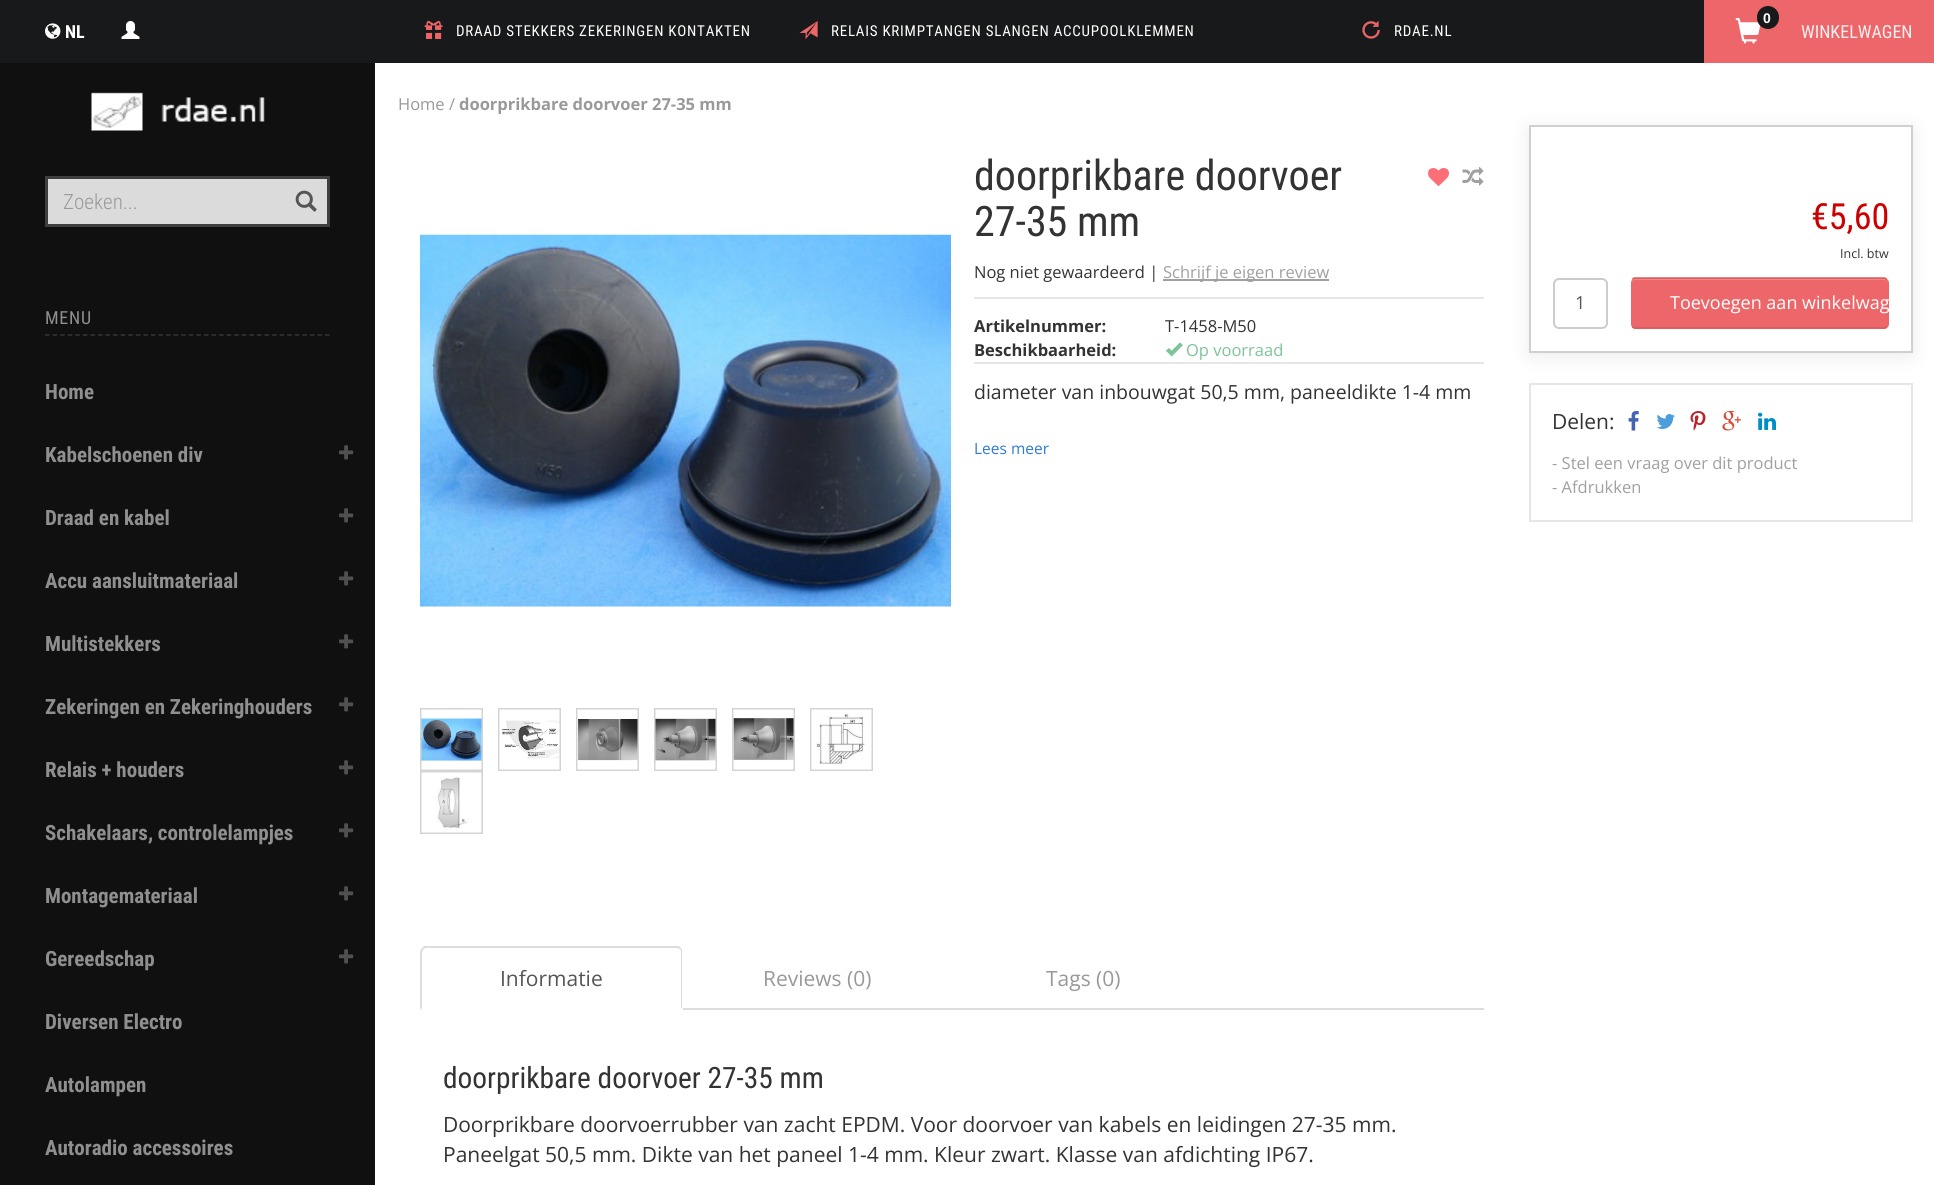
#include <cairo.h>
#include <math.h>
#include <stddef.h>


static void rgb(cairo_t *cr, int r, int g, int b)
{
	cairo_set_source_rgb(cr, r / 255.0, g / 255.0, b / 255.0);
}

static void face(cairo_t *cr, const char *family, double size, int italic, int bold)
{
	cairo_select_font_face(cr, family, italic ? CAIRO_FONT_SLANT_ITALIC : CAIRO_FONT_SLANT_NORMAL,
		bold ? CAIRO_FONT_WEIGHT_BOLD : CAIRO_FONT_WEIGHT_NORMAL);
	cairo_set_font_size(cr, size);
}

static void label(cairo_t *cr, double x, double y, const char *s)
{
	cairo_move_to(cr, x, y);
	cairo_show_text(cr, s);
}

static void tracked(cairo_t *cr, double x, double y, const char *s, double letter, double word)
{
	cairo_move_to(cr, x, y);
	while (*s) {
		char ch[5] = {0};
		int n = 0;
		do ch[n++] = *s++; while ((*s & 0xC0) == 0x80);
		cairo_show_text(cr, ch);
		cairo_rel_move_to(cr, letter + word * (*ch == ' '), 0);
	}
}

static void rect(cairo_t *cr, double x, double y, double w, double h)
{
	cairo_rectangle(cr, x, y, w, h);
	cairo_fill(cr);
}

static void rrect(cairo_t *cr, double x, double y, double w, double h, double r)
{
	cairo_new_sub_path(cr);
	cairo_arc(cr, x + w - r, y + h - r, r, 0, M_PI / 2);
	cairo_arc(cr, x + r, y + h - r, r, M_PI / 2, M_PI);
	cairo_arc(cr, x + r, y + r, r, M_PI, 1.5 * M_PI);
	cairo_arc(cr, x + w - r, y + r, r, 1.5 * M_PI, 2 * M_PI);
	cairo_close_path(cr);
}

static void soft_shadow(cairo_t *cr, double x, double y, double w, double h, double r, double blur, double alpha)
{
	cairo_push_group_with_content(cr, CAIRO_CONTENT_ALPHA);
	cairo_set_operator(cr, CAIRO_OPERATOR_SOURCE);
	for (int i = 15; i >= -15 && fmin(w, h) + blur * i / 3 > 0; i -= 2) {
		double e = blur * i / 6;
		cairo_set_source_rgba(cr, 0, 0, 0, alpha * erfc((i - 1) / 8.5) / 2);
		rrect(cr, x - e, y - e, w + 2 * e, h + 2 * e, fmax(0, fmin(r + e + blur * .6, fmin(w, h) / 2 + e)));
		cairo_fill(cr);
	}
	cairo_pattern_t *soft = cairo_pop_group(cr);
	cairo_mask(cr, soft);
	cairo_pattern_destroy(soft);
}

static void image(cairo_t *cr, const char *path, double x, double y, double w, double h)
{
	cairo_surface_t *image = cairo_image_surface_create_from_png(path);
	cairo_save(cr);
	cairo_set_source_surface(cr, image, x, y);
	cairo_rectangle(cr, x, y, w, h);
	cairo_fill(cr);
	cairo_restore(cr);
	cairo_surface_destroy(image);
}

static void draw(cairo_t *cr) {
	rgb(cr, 255, 255, 255);
	cairo_paint(cr);
	rgb(cr, 24, 25, 26);
	rect(cr, 0, 0, 1704, 63);
	image(cr, "image0.png", 45, 23, 16, 16);
	face(cr, "Roboto Condensed", 18, 0, 1);
	rgb(cr, 255, 255, 255);
	label(cr, 65, 38, "NL");
	image(cr, "image1.png", 121, 21, 19, 18);
	image(cr, "image2.png", 424, 20, 19, 19);
	face(cr, "Roboto Condensed", 15, 0, 0);
	tracked(cr, 456, 36, "DRAAD STEKKERS ZEKERINGEN KONTAKTEN", 0.75, 0);
	image(cr, "image3.png", 799, 21, 19, 19);
	tracked(cr, 831, 36, "RELAIS KRIMPTANGEN SLANGEN ACCUPOOLKLEMMEN", 0.75, 0);
	image(cr, "image4.png", 1362, 20, 18, 19);
	tracked(cr, 1394, 36, "RDAE.NL", 0.75, 0);
	rgb(cr, 237, 103, 106);
	rect(cr, 1704, 0, 230, 63);
	image(cr, "image5.png", 1735, 18, 26, 26);
	rgb(cr, 24, 25, 26);
	rrect(cr, 1757, 6, 22, 23, 11);
	cairo_fill(cr);
	face(cr, "Liberation Sans", 14, 0, 1);
	rgb(cr, 255, 255, 255);
	label(cr, 1763, 23, "0");
	face(cr, "Roboto Condensed", 18, 0, 0);
	rgb(cr, 253, 239, 240);
	label(cr, 1801, 38, "WINKELWAGEN");
	rgb(cr, 16, 16, 16);
	rect(cr, 0, 63, 375, 1122);
	image(cr, "image6.png", 91, 92, 174, 39);
	rgb(cr, 219, 219, 219);
	cairo_rectangle(cr, 46.5, 177.5, 282, 48);
	cairo_fill_preserve(cr);
	rgb(cr, 63, 63, 63);
	cairo_set_line_width(cr, 3);
	cairo_stroke(cr);
	face(cr, "Roboto Condensed Light", 21, 0, 0);
	rgb(cr, 153, 153, 153);
	label(cr, 63, 209, "Zoeken...");
	image(cr, "image7.png", 295, 190, 22, 22);
	cairo_new_path(cr);
	cairo_move_to(cr, 45, 335);
	cairo_line_to(cr, 330, 335);
	rgb(cr, 53, 53, 53);
	cairo_set_line_width(cr, 1.5);
	cairo_set_dash(cr, (double[]){4.5, 3.07}, 2, 0);
	cairo_stroke(cr);
	face(cr, "Roboto Condensed", 18, 0, 0);
	rgb(cr, 143, 143, 143);
	tracked(cr, 45, 324, "MENU", 0.75, 0);
	face(cr, "Roboto Condensed", 21, 0, 1);
	label(cr, 45, 399, "Home");
	label(cr, 45, 462, "Kabelschoenen div");
	image(cr, "image8.png", 339, 445, 15, 15);
	label(cr, 45, 525, "Draad en kabel");
	image(cr, "image8.png", 339, 508, 15, 15);
	label(cr, 45, 588, "Accu aansluitmateriaal");
	image(cr, "image8.png", 339, 571, 15, 15);
	label(cr, 45, 651, "Multistekkers");
	image(cr, "image8.png", 339, 634, 15, 15);
	label(cr, 45, 714, "Zekeringen en Zekeringhouders");
	image(cr, "image8.png", 339, 697, 15, 15);
	label(cr, 45, 777, "Relais + houders");
	image(cr, "image8.png", 339, 760, 15, 15);
	label(cr, 45, 840, "Schakelaars, controlelampjes");
	image(cr, "image8.png", 339, 823, 15, 15);
	label(cr, 45, 903, "Montagemateriaal");
	image(cr, "image8.png", 339, 886, 15, 15);
	label(cr, 45, 966, "Gereedschap");
	image(cr, "image8.png", 339, 949, 15, 15);
	label(cr, 45, 1029, "Diversen Electro");
	label(cr, 45, 1092, "Autolampen");
	label(cr, 45, 1155, "Autoradio accessoires");
	face(cr, "Open Sans", 16.5, 0, 0);
	rgb(cr, 153, 153, 153);
	label(cr, 398, 110, "Home /");
	face(cr, "Open Sans", 16.5, 0, 1);
	label(cr, 459, 110, "doorprikbare doorvoer 27-35 mm");
	image(cr, "image9.png", 420, 231, 531, 377);
	cairo_rectangle(cr, 421, 709, 61, 61);
	rgb(cr, 212, 212, 212);
	cairo_set_line_width(cr, 2);
	cairo_set_dash(cr, NULL, 0, 0);
	cairo_stroke(cr);
	image(cr, "image10.png", 421, 709, 61, 61);
	cairo_rectangle(cr, 499, 709, 61, 61);
	cairo_stroke(cr);
	image(cr, "image11.png", 499, 709, 61, 61);
	cairo_rectangle(cr, 577, 709, 61, 61);
	cairo_stroke(cr);
	image(cr, "image12.png", 577, 709, 61, 61);
	cairo_rectangle(cr, 655, 709, 61, 61);
	cairo_stroke(cr);
	image(cr, "image13.png", 655, 709, 61, 61);
	cairo_rectangle(cr, 733, 709, 61, 61);
	cairo_stroke(cr);
	image(cr, "image14.png", 733, 709, 61, 61);
	cairo_rectangle(cr, 811, 709, 61, 61);
	cairo_stroke(cr);
	image(cr, "image15.png", 811, 709, 61, 61);
	cairo_rectangle(cr, 421, 772, 61, 61);
	cairo_stroke(cr);
	image(cr, "image16.png", 421, 772, 61, 61);
	face(cr, "Roboto Condensed", 42, 0, 0);
	rgb(cr, 51, 51, 51);
	label(cr, 974, 190, "doorprikbare doorvoer");
	label(cr, 974, 236, "27-35 mm");
	image(cr, "image17.png", 1428, 168, 21, 18);
	image(cr, "image18.png", 1462, 167, 22, 19);
	rgb(cr, 230, 230, 230);
	rect(cr, 974, 297, 510, 2);
	face(cr, "Open Sans", 16.5, 0, 0);
	rgb(cr, 51, 51, 51);
	label(cr, 974, 278, "Nog niet gewaardeerd |");
	rgb(cr, 160, 160, 160);
	rect(cr, 1163, 279, 166, 2);
	label(cr, 1163, 278, "Schrijf je eigen review");
	face(cr, "Open Sans", 16.5, 0, 1);
	rgb(cr, 51, 51, 51);
	label(cr, 974, 332, "Artikelnummer:");
	face(cr, "Open Sans", 16.5, 0, 0);
	label(cr, 1165, 332, "T-1458-M50");
	face(cr, "Open Sans", 16.5, 0, 1);
	label(cr, 974, 356, "Beschikbaarheid:");
	image(cr, "image19.png", 1166, 342, 17, 15);
	face(cr, "Open Sans", 16.5, 0, 0);
	rgb(cr, 125, 196, 152);
	label(cr, 1186, 356, "Op voorraad");
	rgb(cr, 230, 230, 230);
	rect(cr, 974, 362, 510, 2);
	face(cr, "Open Sans", 19.5, 0, 0);
	rgb(cr, 51, 51, 51);
	label(cr, 974, 399, "diameter van inbouwgat 50,5 mm, paneeldikte 1-4 mm");
	face(cr, "Open Sans", 15.5, 0, 0);
	rgb(cr, 47, 122, 210);
	label(cr, 974, 454, "Lees meer");
	rgb(cr, 221, 221, 221);
	rect(cr, 683, 1008, 801, 2);
	cairo_new_path(cr);
	cairo_move_to(cr, 426, 948);
	cairo_curve_to(cr, 425, 948, 424, 949, 423, 950);
	cairo_line_to(cr, 422, 948);
	cairo_line_to(cr, 424, 946);
	cairo_line_to(cr, 679, 946);
	cairo_line_to(cr, 681, 948);
	cairo_line_to(cr, 680, 949);
	cairo_curve_to(cr, 679, 949, 678, 948, 676, 948);
	cairo_close_path(cr);
	cairo_fill(cr);
	cairo_new_path(cr);
	cairo_move_to(cr, 681, 948);
	cairo_curve_to(cr, 682, 949, 682, 951, 682, 952);
	cairo_line_to(cr, 682, 1009);
	cairo_line_to(cr, 681, 1008);
	cairo_line_to(cr, 681, 951);
	cairo_line_to(cr, 680, 949);
	cairo_close_path(cr);
	cairo_fill(cr);
	cairo_new_path(cr);
	cairo_move_to(cr, 420, 1010);
	cairo_line_to(cr, 422, 1008);
	cairo_line_to(cr, 422, 952);
	cairo_line_to(cr, 423, 950);
	cairo_line_to(cr, 422, 948);
	cairo_curve_to(cr, 421, 949, 420, 951, 420, 952);
	cairo_close_path(cr);
	cairo_fill(cr);
	face(cr, "Open Sans", 21, 0, 0);
	rgb(cr, 85, 85, 85);
	label(cr, 500, 986, "Informatie");
	rgb(cr, 153, 153, 153);
	label(cr, 763, 986, "Reviews (0)");
	label(cr, 1046, 986, "Tags (0)");
	face(cr, "Roboto Condensed", 29.4, 0, 0);
	rgb(cr, 51, 51, 51);
	label(cr, 443, 1088, "doorprikbare doorvoer 27-35 mm");
	face(cr, "Open Sans", 21, 0, 0);
	label(cr, 443, 1132, "Doorprikbare doorvoerrubber van zacht EPDM. Voor doorvoer van kabels en leidingen 27-35 mm.");
	label(cr, 443, 1162, "Paneelgat 50,5 mm. Dikte van het paneel 1-4 mm. Kleur zwart. Klasse van afdichting IP67.");
	rgb(cr, 0, 0, 0);
	soft_shadow(cr, 1532, 131, 378, 222, 0, 11, 0.1);
	rgb(cr, 255, 255, 255);
	cairo_rectangle(cr, 1530, 126, 382, 226);
	cairo_fill_preserve(cr);
	rgb(cr, 208, 208, 208);
	cairo_stroke(cr);
	face(cr, "Roboto Condensed", 36, 0, 0);
	rgb(cr, 204, 0, 0);
	label(cr, 1811, 229, "€5,60");
	face(cr, "Open Sans", 12.5, 0, 0);
	rgb(cr, 51, 51, 51);
	label(cr, 1840, 258, "Incl. btw");
	rrect(cr, 1554, 279, 53, 49, 5);
	rgb(cr, 204, 204, 204);
	cairo_stroke(cr);
	face(cr, "Open Sans", 18, 0, 0);
	rgb(cr, 85, 85, 85);
	label(cr, 1575, 309, "1");
	rgb(cr, 237, 102, 105);
	rrect(cr, 1631, 278, 258, 51, 5);
	cairo_fill(cr);
	rgb(cr, 240, 132, 135);
	cairo_new_path(cr);
	cairo_move_to(cr, 1635, 280);
	cairo_line_to(cr, 1884, 280);
	cairo_curve_to(cr, 1886, 280, 1887, 282, 1887, 284);
	cairo_curve_to(cr, 1887, 282, 1887, 279, 1884, 279);
	cairo_line_to(cr, 1635, 279);
	cairo_curve_to(cr, 1632, 279, 1632, 282, 1632, 284);
	cairo_curve_to(cr, 1632, 282, 1633, 280, 1635, 280);
	cairo_close_path(cr);
	cairo_fill(cr);
	cairo_new_path(cr);
	cairo_move_to(cr, 1632.5, 279.5);
	cairo_curve_to(cr, 1633, 278.5, 1634, 278, 1635, 278);
	cairo_line_to(cr, 1884, 278);
	cairo_curve_to(cr, 1885, 278, 1886, 278.5, 1886.5, 279.5);
	rgb(cr, 213, 91, 94);
	cairo_set_line_width(cr, 1.5);
	cairo_stroke(cr);
	cairo_new_path(cr);
	cairo_move_to(cr, 1886.5, 326.5);
	cairo_curve_to(cr, 1886, 327.5, 1885, 328, 1884, 328);
	cairo_line_to(cr, 1635, 328);
	cairo_curve_to(cr, 1634, 328, 1633, 327.5, 1632.5, 326.5);
	cairo_stroke(cr);
	rgb(cr, 255, 255, 255);
	label(cr, 1670, 309, "Toevoegen aan winkelwag");
	cairo_rectangle(cr, 1530, 384, 382, 137);
	rgb(cr, 230, 230, 230);
	cairo_set_line_width(cr, 2);
	cairo_stroke(cr);
	face(cr, "Open Sans", 21, 0, 0);
	rgb(cr, 51, 51, 51);
	label(cr, 1552, 429, "Delen:");
	image(cr, "image20.png", 1628, 411, 11, 20);
	image(cr, "image21.png", 1656, 414, 19, 15);
	image(cr, "image22.png", 1690, 411, 16, 20);
	image(cr, "image23.png", 1722, 411, 19, 20);
	image(cr, "image24.png", 1758, 412, 18, 18);
	face(cr, "Open Sans", 16.5, 0, 0);
	rgb(cr, 160, 160, 160);
	label(cr, 1552, 469, "- Stel een vraag over dit product");
	label(cr, 1552, 493, "- Afdrukken");
}

int main(void) {
	cairo_surface_t *surface = cairo_image_surface_create(CAIRO_FORMAT_RGB24, 1934, 1185);
	cairo_t *cr = cairo_create(surface);
	cairo_font_options_t *options = cairo_font_options_create();
	cairo_font_options_set_hint_metrics(options, CAIRO_HINT_METRICS_OFF);
	cairo_font_options_set_hint_style(options, CAIRO_HINT_STYLE_NONE);
	cairo_set_font_options(cr, options);
	cairo_set_miter_limit(cr, 4);
	draw(cr);
	cairo_surface_write_to_png(surface, "render.png");
	cairo_font_options_destroy(options);
	cairo_destroy(cr);
	cairo_surface_destroy(surface);
	return 0;
}
